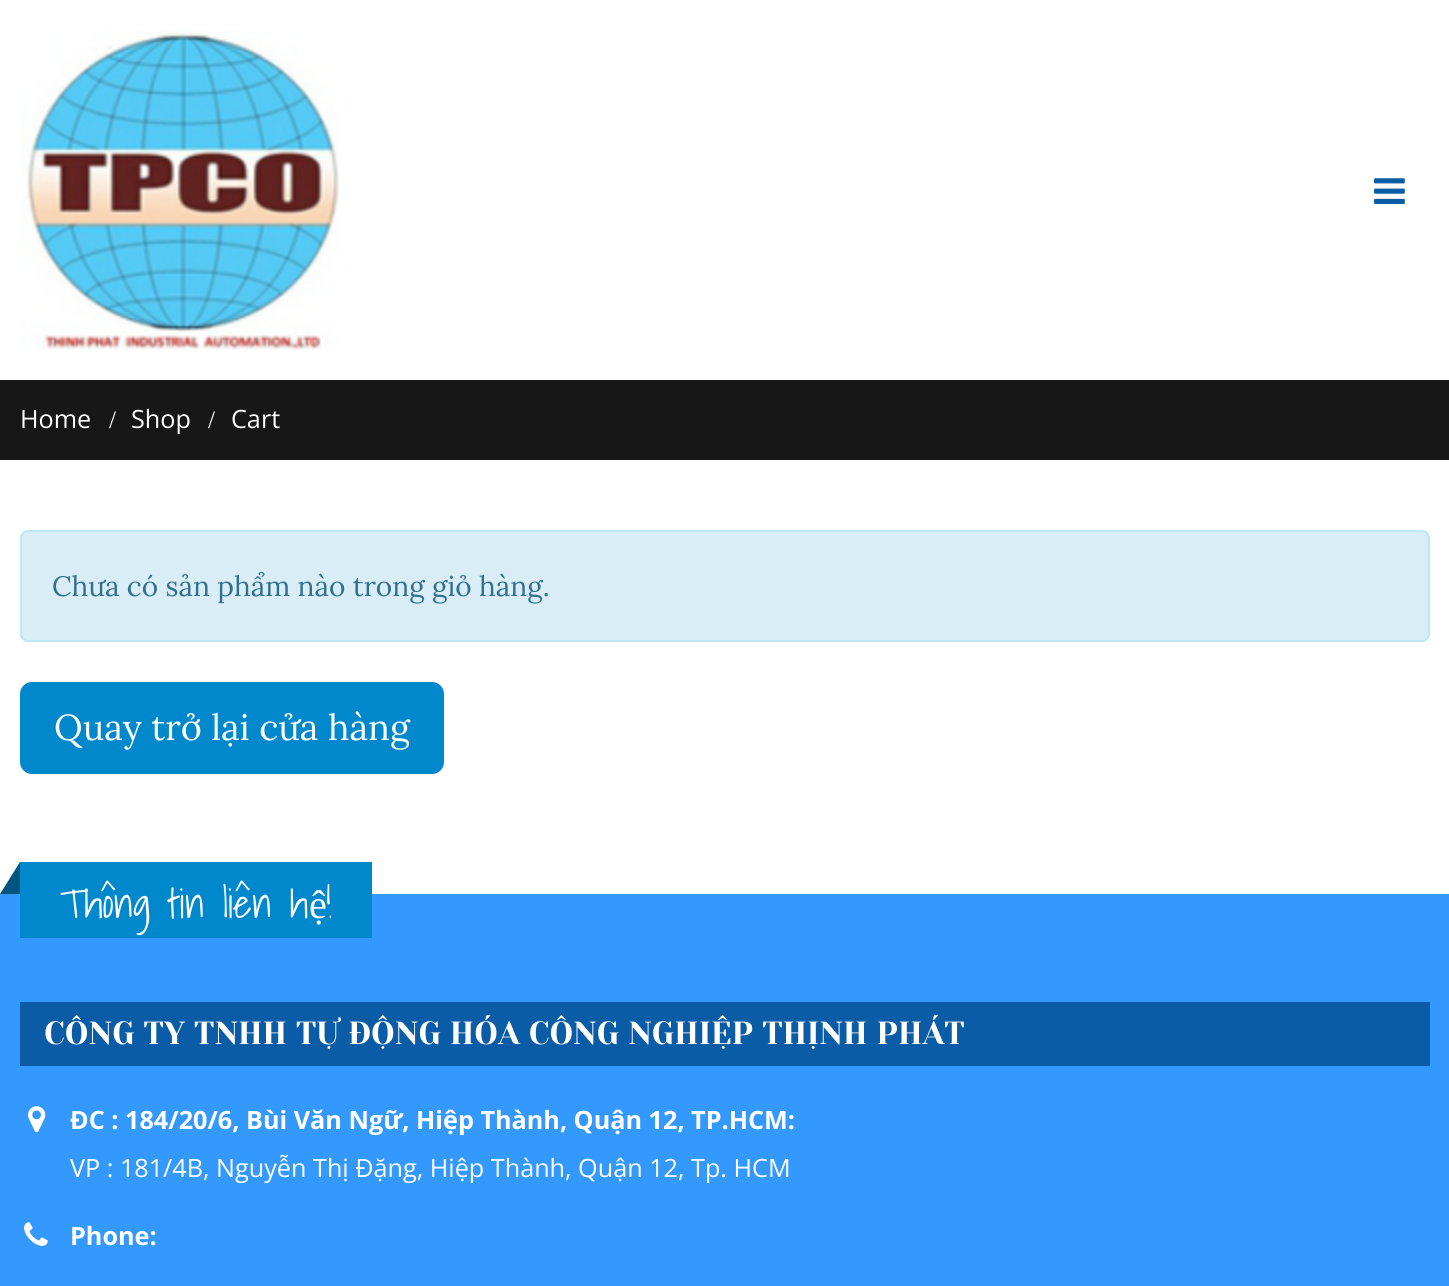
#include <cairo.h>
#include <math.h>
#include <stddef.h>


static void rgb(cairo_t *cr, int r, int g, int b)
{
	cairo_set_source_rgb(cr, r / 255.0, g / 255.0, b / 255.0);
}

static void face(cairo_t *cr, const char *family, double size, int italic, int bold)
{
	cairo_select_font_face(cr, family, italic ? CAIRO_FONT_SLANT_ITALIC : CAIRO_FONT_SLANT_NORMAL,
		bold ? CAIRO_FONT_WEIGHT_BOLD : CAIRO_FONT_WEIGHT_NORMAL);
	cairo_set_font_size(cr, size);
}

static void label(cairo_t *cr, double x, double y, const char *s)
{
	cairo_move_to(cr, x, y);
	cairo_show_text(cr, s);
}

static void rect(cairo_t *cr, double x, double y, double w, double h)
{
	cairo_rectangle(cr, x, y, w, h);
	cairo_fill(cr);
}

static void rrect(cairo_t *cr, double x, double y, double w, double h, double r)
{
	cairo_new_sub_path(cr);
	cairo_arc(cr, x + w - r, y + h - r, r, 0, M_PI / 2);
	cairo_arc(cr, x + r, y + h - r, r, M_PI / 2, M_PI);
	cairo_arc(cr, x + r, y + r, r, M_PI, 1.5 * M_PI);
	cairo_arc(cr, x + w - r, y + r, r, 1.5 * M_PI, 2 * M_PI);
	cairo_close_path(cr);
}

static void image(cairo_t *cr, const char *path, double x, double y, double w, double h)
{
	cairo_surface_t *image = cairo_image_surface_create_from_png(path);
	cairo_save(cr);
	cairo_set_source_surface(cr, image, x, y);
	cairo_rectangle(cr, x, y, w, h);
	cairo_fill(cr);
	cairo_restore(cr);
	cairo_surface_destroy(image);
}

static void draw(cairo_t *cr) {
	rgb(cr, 255, 255, 255);
	cairo_paint(cr);
	image(cr, "image0.png", 20, 30, 320, 320);
	image(cr, "image1.png", 1374, 178, 31, 26);
	rgb(cr, 23, 23, 23);
	rect(cr, 0, 380, 1449, 80);
	face(cr, "Open Sans", 25.2, 0, 0);
	rgb(cr, 255, 255, 255);
	label(cr, 20, 428, "Home");
	face(cr, "Liberation Serif", 25.2, 0, 0);
	label(cr, 109, 428, "/");
	face(cr, "Open Sans", 25.2, 0, 0);
	label(cr, 131, 428, "Shop");
	face(cr, "Liberation Serif", 25.2, 0, 0);
	label(cr, 208, 428, "/");
	face(cr, "Open Sans", 25.2, 0, 0);
	label(cr, 231, 428, "Cart");
	rgb(cr, 217, 237, 247);
	rrect(cr, 21, 531, 1408, 110, 7);
	cairo_fill_preserve(cr);
	rgb(cr, 188, 232, 241);
	cairo_stroke(cr);
	face(cr, "Lora", 28, 0, 0);
	rgb(cr, 49, 112, 143);
	label(cr, 52, 596, "Chưa có sản phẩm nào trong giỏ hàng.");
	rgb(cr, 0, 136, 204);
	rrect(cr, 21, 683, 422, 90, 11);
	cairo_fill_preserve(cr);
	cairo_stroke(cr);
	face(cr, "Lora", 36, 0, 0);
	rgb(cr, 255, 255, 255);
	label(cr, 54, 740, "Quay trở lại cửa hàng");
	rgb(cr, 51, 153, 255);
	rect(cr, 0, 894, 1449, 392);
	rgb(cr, 0, 136, 204);
	rect(cr, 20, 862, 352, 76);
	rgb(cr, 0, 85, 128);
	cairo_new_path(cr);
	cairo_move_to(cr, 20, 862);
	cairo_line_to(cr, 20, 894);
	cairo_line_to(cr, 0, 894);
	cairo_close_path(cr);
	cairo_fill(cr);
	face(cr, "Shadows Into Light Light", 40.25, 0, 0);
	rgb(cr, 255, 255, 255);
	label(cr, 60, 918, "Thông tin liên h !");
	face(cr, "Liberation Serif", 40.25, 0, 0);
	label(cr, 309, 918, "ệ");
	rgb(cr, 10, 92, 166);
	rect(cr, 20, 1002, 1410, 64);
	face(cr, "Yeseva One", 32, 0, 0);
	rgb(cr, 255, 255, 255);
	label(cr, 44, 1044, "CÔNG TY TNHH TỰ ĐỘNG HÓA CÔNG NGHIỆP THỊNH PHÁT");
	image(cr, "image2.png", 28, 1106, 18, 27);
	face(cr, "Open Sans", 25.2, 0, 1);
	label(cr, 70, 1129, "ĐC : 184/20/6, Bùi Văn Ngữ, Hiệp Thành, Quận 12, TP.HCM:");
	face(cr, "Open Sans", 25.2, 0, 0);
	label(cr, 70, 1177, "VP : 181/4B, Nguyễn Thị Đặng, Hiệp Thành, Quận 12, Tp. HCM");
	image(cr, "image3.png", 24, 1222, 24, 24);
	face(cr, "Open Sans", 25.2, 0, 1);
	label(cr, 70, 1245, "Phone:");
}

int main(void) {
	cairo_surface_t *surface = cairo_image_surface_create(CAIRO_FORMAT_RGB24, 1449, 1286);
	cairo_t *cr = cairo_create(surface);
	cairo_font_options_t *options = cairo_font_options_create();
	cairo_font_options_set_hint_metrics(options, CAIRO_HINT_METRICS_OFF);
	cairo_font_options_set_hint_style(options, CAIRO_HINT_STYLE_NONE);
	cairo_set_font_options(cr, options);
	cairo_set_miter_limit(cr, 4);
	draw(cr);
	cairo_surface_write_to_png(surface, "render.png");
	cairo_font_options_destroy(options);
	cairo_destroy(cr);
	cairo_surface_destroy(surface);
	return 0;
}
